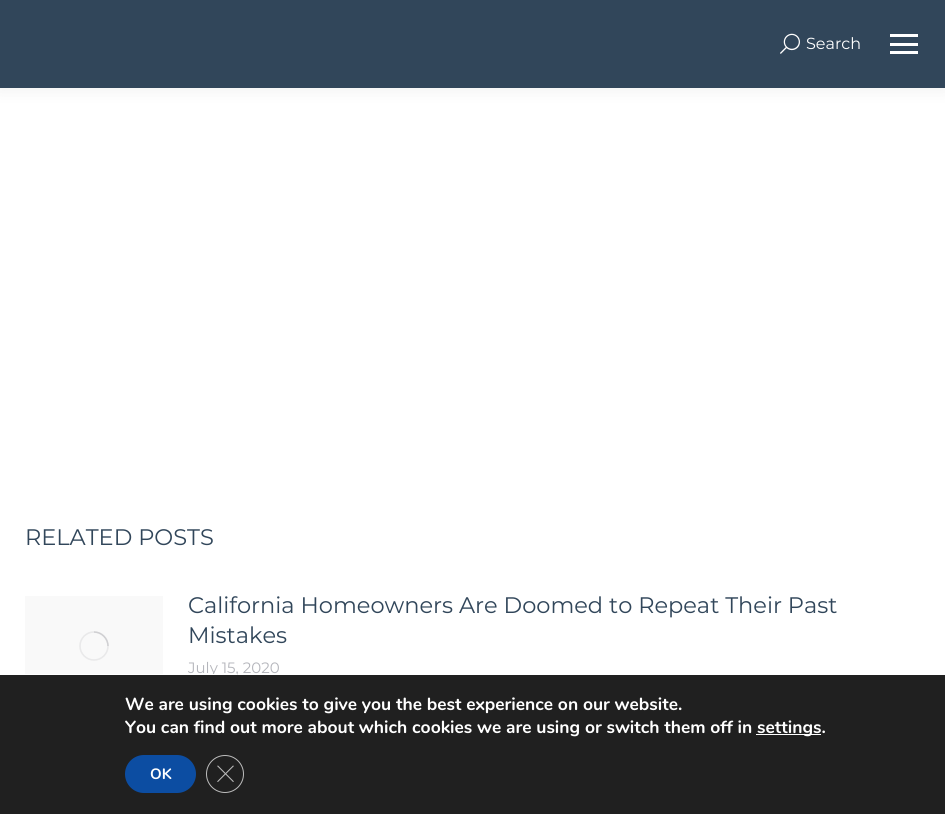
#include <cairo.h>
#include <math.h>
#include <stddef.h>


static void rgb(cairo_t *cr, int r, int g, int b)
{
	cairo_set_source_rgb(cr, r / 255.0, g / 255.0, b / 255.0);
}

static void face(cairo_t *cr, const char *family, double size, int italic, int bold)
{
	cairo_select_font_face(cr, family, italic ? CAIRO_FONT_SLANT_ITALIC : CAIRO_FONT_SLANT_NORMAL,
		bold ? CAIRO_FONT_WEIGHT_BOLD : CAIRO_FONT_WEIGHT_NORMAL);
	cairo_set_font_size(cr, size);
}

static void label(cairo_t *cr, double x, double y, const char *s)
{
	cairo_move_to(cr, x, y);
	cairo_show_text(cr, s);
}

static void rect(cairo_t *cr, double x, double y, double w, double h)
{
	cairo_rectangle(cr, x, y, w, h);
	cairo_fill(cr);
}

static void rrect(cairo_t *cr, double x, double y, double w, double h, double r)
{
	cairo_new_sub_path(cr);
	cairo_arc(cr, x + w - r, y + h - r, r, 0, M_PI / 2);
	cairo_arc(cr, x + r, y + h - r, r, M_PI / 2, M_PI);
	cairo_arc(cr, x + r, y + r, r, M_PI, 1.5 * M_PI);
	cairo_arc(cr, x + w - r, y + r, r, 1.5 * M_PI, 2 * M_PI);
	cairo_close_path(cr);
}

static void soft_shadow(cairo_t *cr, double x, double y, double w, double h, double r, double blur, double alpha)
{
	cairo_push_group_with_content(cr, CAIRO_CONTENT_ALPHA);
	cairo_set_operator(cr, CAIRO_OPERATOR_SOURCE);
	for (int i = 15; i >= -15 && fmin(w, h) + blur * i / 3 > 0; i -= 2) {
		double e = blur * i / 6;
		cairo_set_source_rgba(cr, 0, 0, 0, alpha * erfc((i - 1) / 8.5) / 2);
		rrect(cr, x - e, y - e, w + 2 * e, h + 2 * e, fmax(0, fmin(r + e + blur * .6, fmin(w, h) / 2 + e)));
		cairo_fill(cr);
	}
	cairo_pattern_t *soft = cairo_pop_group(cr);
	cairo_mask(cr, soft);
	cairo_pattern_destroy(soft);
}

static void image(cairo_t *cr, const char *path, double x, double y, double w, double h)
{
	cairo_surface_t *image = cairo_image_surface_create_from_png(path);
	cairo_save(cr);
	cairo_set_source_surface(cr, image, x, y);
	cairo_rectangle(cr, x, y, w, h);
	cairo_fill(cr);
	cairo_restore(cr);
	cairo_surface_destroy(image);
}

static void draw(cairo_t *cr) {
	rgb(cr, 255, 255, 255);
	cairo_paint(cr);
	rgb(cr, 0, 0, 0);
	soft_shadow(cr, -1, -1, 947, 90, 0, 9.5, 0.07);
	rgb(cr, 49, 70, 90);
	rect(cr, 0, 0, 945, 88);
	image(cr, "image0.png", 780, 33, 20, 21);
	face(cr, "Montserrat", 16, 0, 0);
	rgb(cr, 255, 255, 255);
	label(cr, 806, 49, "Search");
	rect(cr, 890, 34, 28, 3);
	rect(cr, 890, 43, 28, 3);
	rect(cr, 890, 51, 28, 3);
	face(cr, "Montserrat", 22.5, 0, 0);
	rgb(cr, 49, 70, 90);
	label(cr, 25, 545, "RELATED POSTS");
	rgb(cr, 249, 249, 249);
	rect(cr, 25, 596, 138, 78);
	cairo_new_path(cr);
	cairo_arc(cr, 94, 646, 14, 0, 2 * M_PI);
	rgb(cr, 233, 233, 234);
	cairo_set_line_width(cr, 1.6);
	cairo_stroke(cr);
	cairo_new_path(cr);
	cairo_move_to(cr, 108, 646);
	cairo_curve_to(cr, 108, 638.5, 101.5, 632, 94, 632);
	cairo_set_source_rgba(cr, 0.522, 0.525, 0.549, 0.25);
	cairo_stroke(cr);
	rgb(cr, 49, 70, 90);
	label(cr, 188, 613, "California Homeowners Are Doomed to Repeat Their Past");
	label(cr, 188, 643, "Mistakes");
	face(cr, "Montserrat", 15, 0, 0);
	rgb(cr, 180, 181, 187);
	label(cr, 188, 673, "July 15, 2020");
	rgb(cr, 32, 32, 32);
	rect(cr, 0, 675, 945, 139);
	rgb(cr, 255, 255, 255);
	rect(cr, 209, 674, 28, 1);
	face(cr, "Nunito", 17.5, 0, 1);
	label(cr, 125, 710, "We are using cookies to give you the best experience on our website.");
	label(cr, 125, 733, "You can find out more about which cookies we are using or switch them off in");
	rect(cr, 756, 734, 65, 1);
	label(cr, 757, 733, "settings.");
	rgb(cr, 12, 77, 162);
	rrect(cr, 125, 755, 71, 38, 19);
	cairo_fill(cr);
	face(cr, "Nunito", 15, 0, 1);
	rgb(cr, 255, 255, 255);
	label(cr, 150, 779, "OK");
	cairo_new_path(cr);
	cairo_arc(cr, 225, 774, 18.5, 0, 2 * M_PI);
	rgb(cr, 188, 188, 188);
	cairo_set_line_width(cr, 1);
	cairo_stroke(cr);
	cairo_new_path(cr);
	cairo_move_to(cr, 233, 765.5);
	cairo_line_to(cr, 234, 766);
	cairo_line_to(cr, 218, 782);
	cairo_line_to(cr, 217, 781.5);
	cairo_close_path(cr);
	cairo_fill(cr);
	cairo_new_path(cr);
	cairo_move_to(cr, 217, 766);
	cairo_line_to(cr, 218, 765.5);
	cairo_line_to(cr, 234, 781.5);
	cairo_line_to(cr, 233, 782);
	cairo_close_path(cr);
	cairo_fill(cr);
}

int main(void) {
	cairo_surface_t *surface = cairo_image_surface_create(CAIRO_FORMAT_RGB24, 945, 814);
	cairo_t *cr = cairo_create(surface);
	cairo_font_options_t *options = cairo_font_options_create();
	cairo_font_options_set_hint_metrics(options, CAIRO_HINT_METRICS_OFF);
	cairo_font_options_set_hint_style(options, CAIRO_HINT_STYLE_NONE);
	cairo_set_font_options(cr, options);
	cairo_set_miter_limit(cr, 4);
	draw(cr);
	cairo_surface_write_to_png(surface, "render.png");
	cairo_font_options_destroy(options);
	cairo_destroy(cr);
	cairo_surface_destroy(surface);
	return 0;
}
